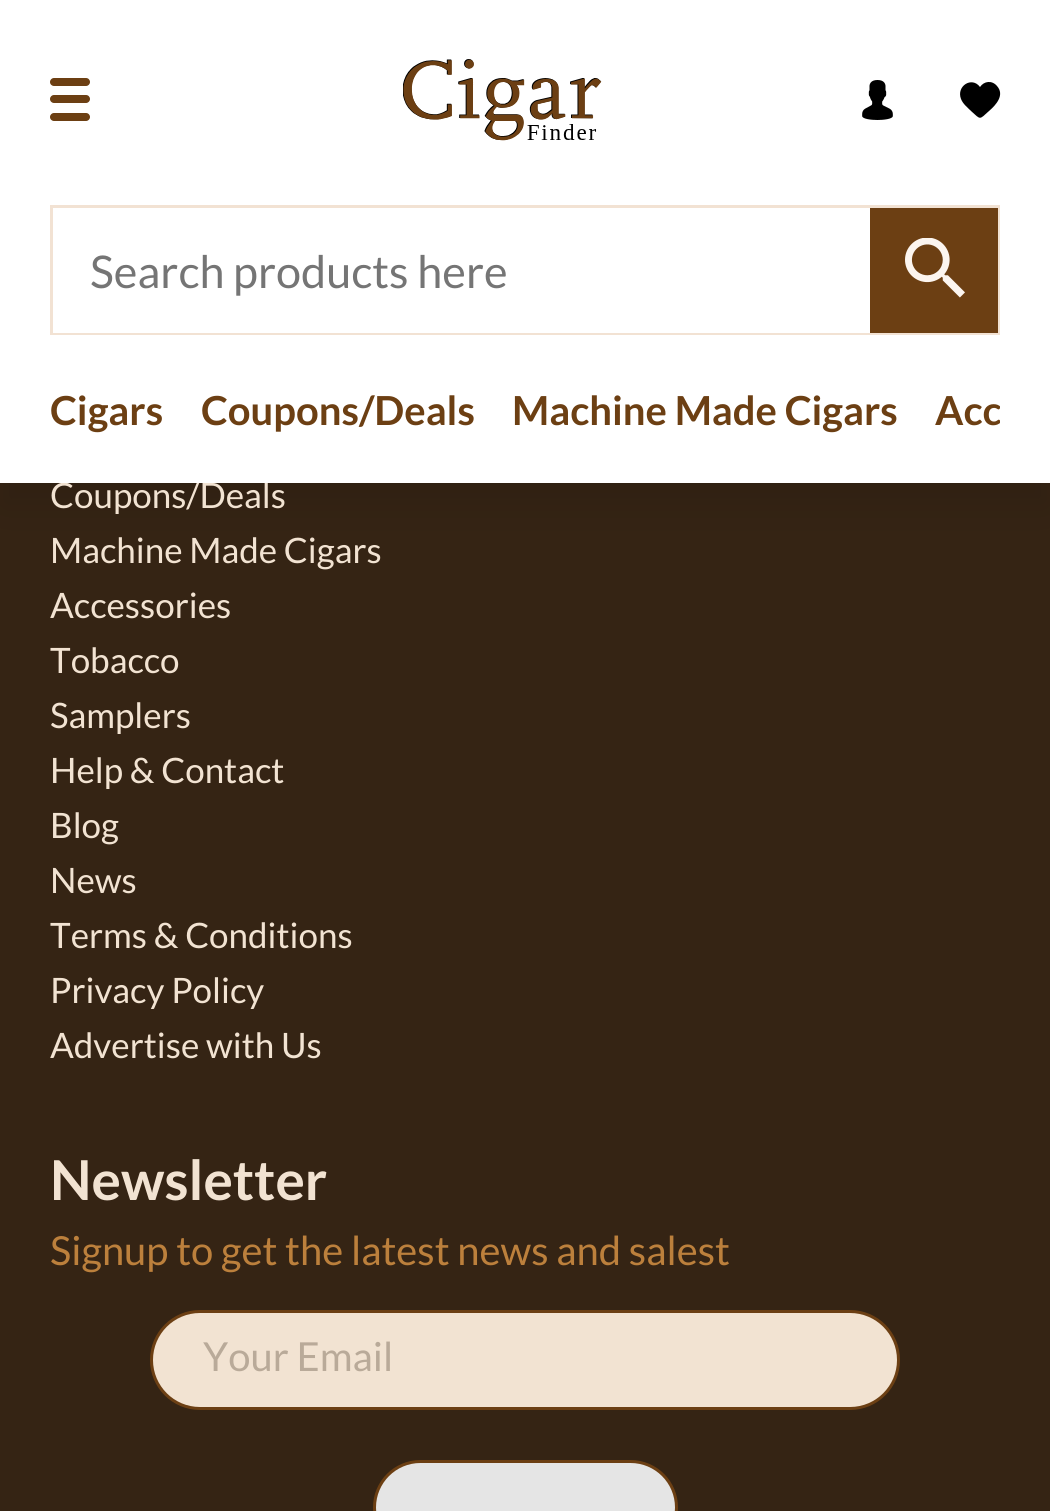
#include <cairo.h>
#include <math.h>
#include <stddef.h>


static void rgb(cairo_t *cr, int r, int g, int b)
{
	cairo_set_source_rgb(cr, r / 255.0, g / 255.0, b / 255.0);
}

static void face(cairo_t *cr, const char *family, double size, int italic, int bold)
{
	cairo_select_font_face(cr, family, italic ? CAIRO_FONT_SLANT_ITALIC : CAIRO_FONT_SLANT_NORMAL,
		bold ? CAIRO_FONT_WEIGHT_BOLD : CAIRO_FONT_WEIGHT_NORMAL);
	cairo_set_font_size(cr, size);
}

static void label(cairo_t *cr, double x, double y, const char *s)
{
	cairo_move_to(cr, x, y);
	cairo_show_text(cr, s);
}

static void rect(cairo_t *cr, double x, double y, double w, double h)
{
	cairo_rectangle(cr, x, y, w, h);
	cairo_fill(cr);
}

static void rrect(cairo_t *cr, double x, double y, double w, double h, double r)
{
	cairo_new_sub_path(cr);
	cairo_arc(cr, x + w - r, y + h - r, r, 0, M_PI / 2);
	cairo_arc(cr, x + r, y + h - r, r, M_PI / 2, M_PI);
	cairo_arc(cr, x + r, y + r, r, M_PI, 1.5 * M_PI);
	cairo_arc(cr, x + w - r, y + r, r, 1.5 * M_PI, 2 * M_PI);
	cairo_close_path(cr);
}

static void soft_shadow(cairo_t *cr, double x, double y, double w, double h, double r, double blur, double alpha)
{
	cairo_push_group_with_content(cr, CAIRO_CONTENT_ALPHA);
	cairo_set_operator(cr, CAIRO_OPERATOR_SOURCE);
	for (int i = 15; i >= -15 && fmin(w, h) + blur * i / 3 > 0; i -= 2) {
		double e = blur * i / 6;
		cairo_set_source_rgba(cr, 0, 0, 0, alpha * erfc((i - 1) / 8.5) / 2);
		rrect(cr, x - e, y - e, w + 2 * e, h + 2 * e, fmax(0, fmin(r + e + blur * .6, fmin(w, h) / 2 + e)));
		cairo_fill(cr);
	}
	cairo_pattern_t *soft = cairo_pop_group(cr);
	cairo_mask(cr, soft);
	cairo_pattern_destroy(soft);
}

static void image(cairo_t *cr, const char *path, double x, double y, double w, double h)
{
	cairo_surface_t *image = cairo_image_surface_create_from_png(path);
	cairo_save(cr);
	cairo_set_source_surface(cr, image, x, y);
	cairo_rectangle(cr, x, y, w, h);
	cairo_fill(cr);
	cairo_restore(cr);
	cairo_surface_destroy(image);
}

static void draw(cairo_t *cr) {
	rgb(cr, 53, 36, 20);
	cairo_paint(cr);
	rgb(cr, 0, 0, 0);
	soft_shadow(cr, 0, 25, 1050, 483, 0, 19, 0.1);
	face(cr, "Lato", 35, 0, 0);
	rgb(cr, 242, 227, 210);
	label(cr, 50, 508, "Coupons/Deals");
	rgb(cr, 255, 255, 255);
	rect(cr, 0, 0, 1050, 483);
	rgb(cr, 108, 63, 19);
	rrect(cr, 50, 95, 40, 8, 4);
	cairo_fill(cr);
	rrect(cr, 50, 78, 40, 8, 4);
	cairo_fill(cr);
	rrect(cr, 50, 113, 40, 8, 4);
	cairo_fill(cr);
	image(cr, "image0.png", 403, 59, 199, 82);
	image(cr, "image1.png", 862, 80, 31, 40);
	rgb(cr, 0, 0, 0);
	cairo_new_path(cr);
	cairo_move_to(cr, 997, 86);
	cairo_curve_to(cr, 992, 80, 984, 81, 980, 87);
	cairo_curve_to(cr, 972, 76, 956, 86, 961, 99);
	cairo_curve_to(cr, 963, 104, 967, 107, 971, 111);
	cairo_curve_to(cr, 981, 120, 979, 120, 989, 111);
	cairo_curve_to(cr, 996, 105, 1005, 95, 997, 86);
	cairo_close_path(cr);
	cairo_fill(cr);
	cairo_rectangle(cr, 51.5, 206.5, 947, 127);
	rgb(cr, 242, 226, 211);
	cairo_set_line_width(cr, 3);
	cairo_stroke(cr);
	rgb(cr, 255, 255, 255);
	rect(cr, 53, 332, 817, 1);
	face(cr, "Lato", 45, 0, 0);
	rgb(cr, 117, 117, 117);
	label(cr, 90, 288, "Search products here");
	rgb(cr, 108, 63, 19);
	rect(cr, 870, 208, 128, 125);
	image(cr, "image2.png", 905, 238, 60, 60);
	face(cr, "Lato", 40, 0, 1);
	label(cr, 50, 425, "Cigars");
	label(cr, 201, 425, "Coupons/Deals");
	label(cr, 512, 425, "Machine Made Cigars");
	cairo_save(cr);
	cairo_rectangle(cr, 50, 385, 950, 48);
	cairo_clip(cr);
	label(cr, 935, 425, "Acc");
	cairo_restore(cr);
	face(cr, "Lato", 35, 0, 0);
	rgb(cr, 242, 227, 210);
	label(cr, 50, 563, "Machine Made Cigars");
	label(cr, 50, 618, "Accessories");
	label(cr, 50, 673, "Tobacco");
	label(cr, 50, 728, "Samplers");
	label(cr, 50, 783, "Help & Contact");
	label(cr, 50, 838, "Blog");
	label(cr, 50, 893, "News");
	label(cr, 50, 948, "Terms & Conditions");
	label(cr, 50, 1003, "Privacy Policy");
	label(cr, 50, 1058, "Advertise with Us");
	face(cr, "Lato", 55, 0, 1);
	label(cr, 50, 1200, "Newsletter");
	face(cr, "Lato", 40, 0, 0);
	rgb(cr, 188, 128, 60);
	label(cr, 50, 1265, "Signup to get the latest news and salest");
	rgb(cr, 242, 227, 210);
	rrect(cr, 151.5, 1311.5, 747, 97, 48.5);
	cairo_fill_preserve(cr);
	rgb(cr, 108, 63, 19);
	cairo_stroke(cr);
	rgb(cr, 185, 170, 153);
	label(cr, 203, 1371, "Your Email");
	rgb(cr, 229, 229, 229);
	rrect(cr, 374.5, 1461.5, 302, 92, 46);
	cairo_fill_preserve(cr);
	rgb(cr, 108, 63, 19);
	cairo_stroke(cr);
}

int main(void) {
	cairo_surface_t *surface = cairo_image_surface_create(CAIRO_FORMAT_RGB24, 1050, 1511);
	cairo_t *cr = cairo_create(surface);
	cairo_font_options_t *options = cairo_font_options_create();
	cairo_font_options_set_hint_metrics(options, CAIRO_HINT_METRICS_OFF);
	cairo_font_options_set_hint_style(options, CAIRO_HINT_STYLE_NONE);
	cairo_set_font_options(cr, options);
	cairo_set_miter_limit(cr, 4);
	draw(cr);
	cairo_surface_write_to_png(surface, "render.png");
	cairo_font_options_destroy(options);
	cairo_destroy(cr);
	cairo_surface_destroy(surface);
	return 0;
}
